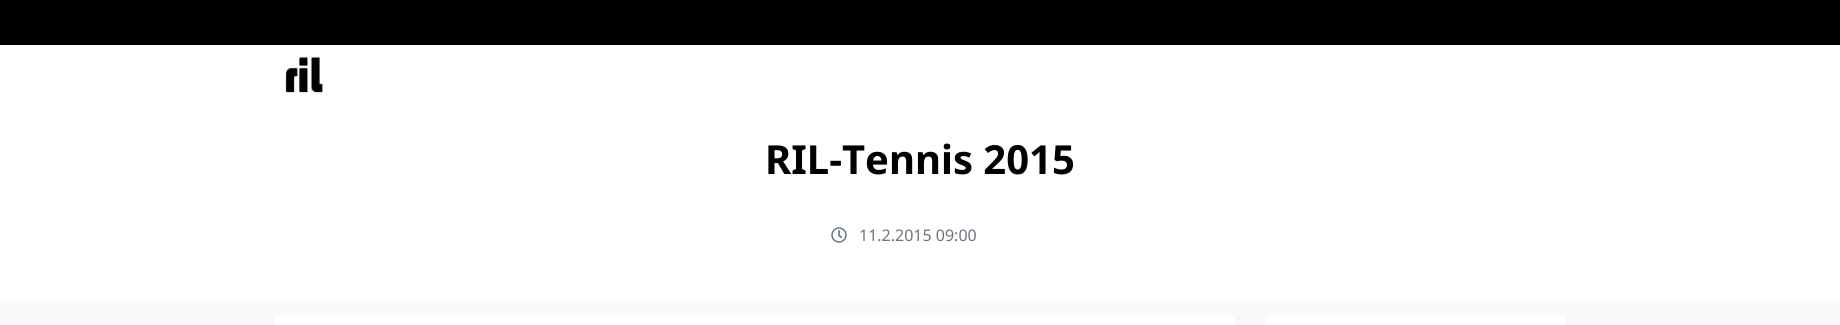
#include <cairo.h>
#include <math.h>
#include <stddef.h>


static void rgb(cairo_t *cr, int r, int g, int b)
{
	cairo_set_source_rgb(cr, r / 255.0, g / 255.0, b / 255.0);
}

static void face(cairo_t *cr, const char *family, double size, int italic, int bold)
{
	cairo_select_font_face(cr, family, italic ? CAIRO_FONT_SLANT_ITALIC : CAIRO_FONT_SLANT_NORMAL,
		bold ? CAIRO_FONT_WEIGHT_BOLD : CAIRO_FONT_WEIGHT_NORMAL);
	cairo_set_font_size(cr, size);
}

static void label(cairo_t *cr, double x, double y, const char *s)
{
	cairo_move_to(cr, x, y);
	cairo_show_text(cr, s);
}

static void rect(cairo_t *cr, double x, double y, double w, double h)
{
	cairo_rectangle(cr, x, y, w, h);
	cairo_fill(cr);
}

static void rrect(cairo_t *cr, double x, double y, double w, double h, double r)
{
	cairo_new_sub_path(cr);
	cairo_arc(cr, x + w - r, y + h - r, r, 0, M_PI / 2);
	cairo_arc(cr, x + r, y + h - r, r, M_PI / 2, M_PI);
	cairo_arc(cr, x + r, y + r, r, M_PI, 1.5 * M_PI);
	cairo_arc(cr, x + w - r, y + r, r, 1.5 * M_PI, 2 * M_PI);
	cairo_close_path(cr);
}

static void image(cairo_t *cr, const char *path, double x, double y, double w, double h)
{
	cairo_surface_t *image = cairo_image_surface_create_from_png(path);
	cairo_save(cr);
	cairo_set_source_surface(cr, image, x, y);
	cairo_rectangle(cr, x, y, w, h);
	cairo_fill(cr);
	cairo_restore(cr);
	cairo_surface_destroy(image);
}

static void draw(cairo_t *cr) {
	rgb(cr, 255, 255, 255);
	cairo_paint(cr);
	rgb(cr, 0, 0, 0);
	rect(cr, 0, 0, 1840, 45);
	image(cr, "image0.png", 285, 56, 39, 37);
	face(cr, "Noto Sans", 40, 0, 1);
	label(cr, 765, 174, "RIL-Tennis 2015");
	image(cr, "image1.png", 831, 227, 16, 16);
	face(cr, "Noto Sans", 16, 0, 0);
	rgb(cr, 108, 117, 125);
	label(cr, 859, 241, "11.2.2015 09:00");
	rgb(cr, 248, 249, 250);
	rect(cr, 0, 303, 1840, 22);
	rgb(cr, 255, 255, 255);
	cairo_new_path(cr);
	cairo_move_to(cr, 280, 315);
	cairo_line_to(cr, 1230, 315);
	cairo_curve_to(cr, 1233, 315, 1235, 317, 1235, 320);
	cairo_line_to(cr, 1235, 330);
	cairo_line_to(cr, 275, 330);
	cairo_line_to(cr, 275, 320);
	cairo_curve_to(cr, 275, 317, 277, 315, 280, 315);
	cairo_close_path(cr);
	cairo_fill(cr);
	rrect(cr, 1265, 315, 300, 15, 5);
	cairo_fill(cr);
}

int main(void) {
	cairo_surface_t *surface = cairo_image_surface_create(CAIRO_FORMAT_RGB24, 1840, 325);
	cairo_t *cr = cairo_create(surface);
	cairo_font_options_t *options = cairo_font_options_create();
	cairo_font_options_set_hint_metrics(options, CAIRO_HINT_METRICS_OFF);
	cairo_font_options_set_hint_style(options, CAIRO_HINT_STYLE_NONE);
	cairo_set_font_options(cr, options);
	cairo_set_miter_limit(cr, 4);
	draw(cr);
	cairo_surface_write_to_png(surface, "render.png");
	cairo_font_options_destroy(options);
	cairo_destroy(cr);
	cairo_surface_destroy(surface);
	return 0;
}
